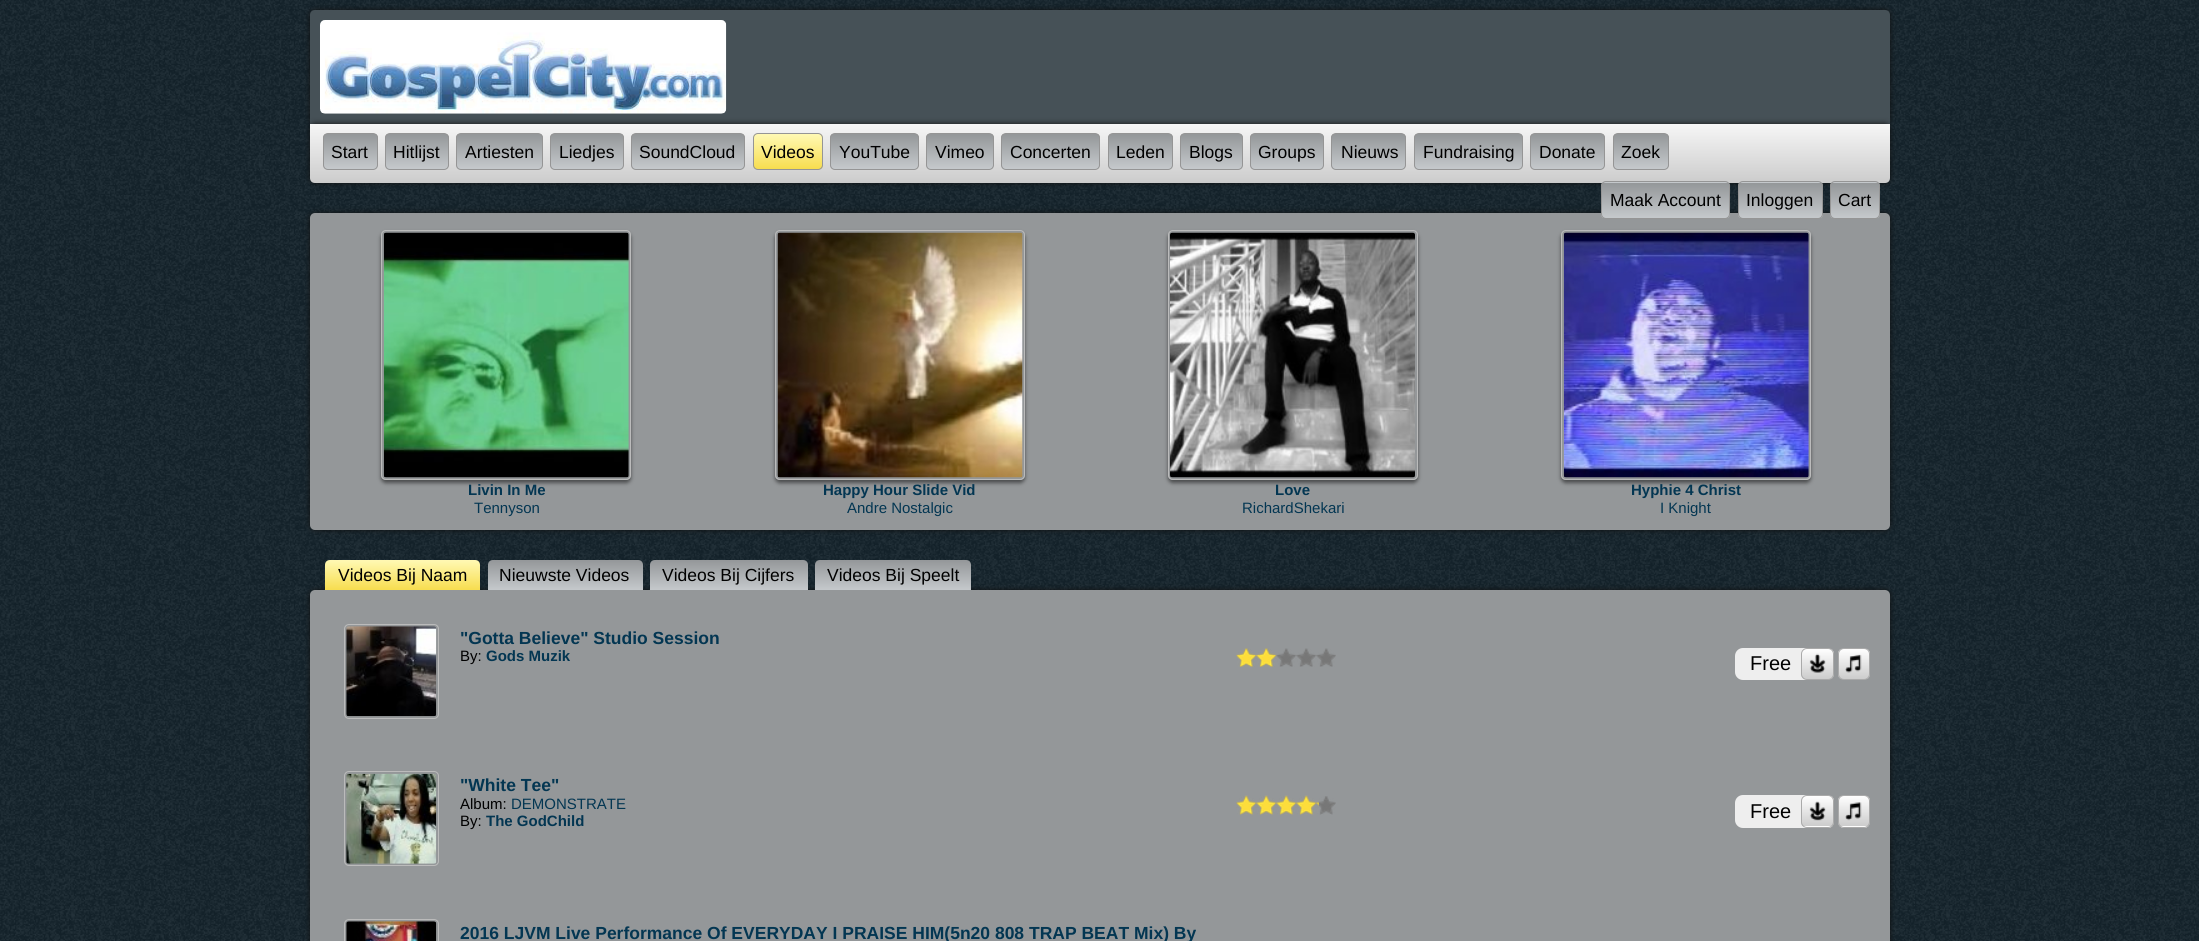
#include <cairo.h>
#include <math.h>
#include <stddef.h>


static void rgb(cairo_t *cr, int r, int g, int b)
{
	cairo_set_source_rgb(cr, r / 255.0, g / 255.0, b / 255.0);
}

static void face(cairo_t *cr, const char *family, double size, int italic, int bold)
{
	cairo_select_font_face(cr, family, italic ? CAIRO_FONT_SLANT_ITALIC : CAIRO_FONT_SLANT_NORMAL,
		bold ? CAIRO_FONT_WEIGHT_BOLD : CAIRO_FONT_WEIGHT_NORMAL);
	cairo_set_font_size(cr, size);
}

static void label(cairo_t *cr, double x, double y, const char *s)
{
	cairo_move_to(cr, x, y);
	cairo_show_text(cr, s);
}

static void rect(cairo_t *cr, double x, double y, double w, double h)
{
	cairo_rectangle(cr, x, y, w, h);
	cairo_fill(cr);
}

static void rrect(cairo_t *cr, double x, double y, double w, double h, double r)
{
	cairo_new_sub_path(cr);
	cairo_arc(cr, x + w - r, y + h - r, r, 0, M_PI / 2);
	cairo_arc(cr, x + r, y + h - r, r, M_PI / 2, M_PI);
	cairo_arc(cr, x + r, y + r, r, M_PI, 1.5 * M_PI);
	cairo_arc(cr, x + w - r, y + r, r, 1.5 * M_PI, 2 * M_PI);
	cairo_close_path(cr);
}

static void soft_shadow(cairo_t *cr, double x, double y, double w, double h, double r, double blur, double alpha)
{
	cairo_push_group_with_content(cr, CAIRO_CONTENT_ALPHA);
	cairo_set_operator(cr, CAIRO_OPERATOR_SOURCE);
	for (int i = 15; i >= -15 && fmin(w, h) + blur * i / 3 > 0; i -= 2) {
		double e = blur * i / 6;
		cairo_set_source_rgba(cr, 0, 0, 0, alpha * erfc((i - 1) / 8.5) / 2);
		rrect(cr, x - e, y - e, w + 2 * e, h + 2 * e, fmax(0, fmin(r + e + blur * .6, fmin(w, h) / 2 + e)));
		cairo_fill(cr);
	}
	cairo_pattern_t *soft = cairo_pop_group(cr);
	cairo_mask(cr, soft);
	cairo_pattern_destroy(soft);
}

static void image(cairo_t *cr, const char *path, double x, double y, double w, double h)
{
	cairo_surface_t *image = cairo_image_surface_create_from_png(path);
	cairo_save(cr);
	cairo_set_source_surface(cr, image, x, y);
	cairo_rectangle(cr, x, y, w, h);
	cairo_fill(cr);
	cairo_restore(cr);
	cairo_surface_destroy(image);
}

static void draw(cairo_t *cr) {
	cairo_pattern_t *gradient;
	rgb(cr, 24, 41, 51);
	cairo_paint(cr);
	image(cr, "image0.png", 0, 0, 2199, 941);
	rgb(cr, 17, 17, 17);
	soft_shadow(cr, 310, 10, 1580, 114, 5, 3, 1);
	rgb(cr, 70, 81, 87);
	cairo_new_path(cr);
	cairo_move_to(cr, 315, 10);
	cairo_line_to(cr, 1885, 10);
	cairo_curve_to(cr, 1888, 10, 1890, 12, 1890, 15);
	cairo_line_to(cr, 1890, 124);
	cairo_line_to(cr, 310, 124);
	cairo_line_to(cr, 310, 15);
	cairo_curve_to(cr, 310, 12, 312, 10, 315, 10);
	cairo_close_path(cr);
	cairo_fill(cr);
	image(cr, "image1.png", 320, 20, 407, 94);
	rgb(cr, 17, 17, 17);
	soft_shadow(cr, 310, 124, 1580, 59, 5, 3, 1);
	gradient = cairo_pattern_create_linear(1100, 124, 1100, 183);
	cairo_pattern_add_color_stop_rgba(gradient, 0, 0.965, 0.965, 0.965, 1);
	cairo_pattern_add_color_stop_rgba(gradient, 1, 0.8, 0.8, 0.8, 1);
	cairo_set_source(cr, gradient);
	cairo_pattern_destroy(gradient);
	cairo_new_path(cr);
	cairo_move_to(cr, 310, 124);
	cairo_line_to(cr, 1890, 124);
	cairo_line_to(cr, 1890, 178);
	cairo_curve_to(cr, 1890, 181, 1888, 183, 1885, 183);
	cairo_line_to(cr, 315, 183);
	cairo_curve_to(cr, 312, 183, 310, 181, 310, 178);
	cairo_close_path(cr);
	cairo_fill(cr);
	cairo_save(cr);
	rrect(cr, 323, 133, 55, 37, 5);
	cairo_clip(cr);
	gradient = cairo_pattern_create_linear(350, 134, 350, 169);
	cairo_pattern_add_color_stop_rgba(gradient, 0, 0.58, 0.592, 0.6, 1);
	cairo_pattern_add_color_stop_rgba(gradient, 1, 0.773, 0.788, 0.8, 1);
	cairo_set_source(cr, gradient);
	cairo_pattern_destroy(gradient);
	rect(cr, 323, 134, 55, 35);
	cairo_restore(cr);
	rrect(cr, 323.5, 133.5, 54, 36, 4.5);
	rgb(cr, 149, 149, 149);
	cairo_set_line_width(cr, 1);
	cairo_stroke(cr);
	face(cr, "Liberation Sans", 17.5, 0, 0);
	rgb(cr, 0, 0, 0);
	label(cr, 331, 158, "Start");
	cairo_save(cr);
	rrect(cr, 385, 133, 64, 37, 5);
	cairo_clip(cr);
	gradient = cairo_pattern_create_linear(417, 134, 417, 169);
	cairo_pattern_add_color_stop_rgba(gradient, 0, 0.58, 0.592, 0.6, 1);
	cairo_pattern_add_color_stop_rgba(gradient, 1, 0.773, 0.788, 0.8, 1);
	cairo_set_source(cr, gradient);
	cairo_pattern_destroy(gradient);
	rect(cr, 385, 134, 64, 35);
	cairo_restore(cr);
	rrect(cr, 385.5, 133.5, 63, 36, 4.5);
	rgb(cr, 149, 149, 149);
	cairo_stroke(cr);
	rgb(cr, 0, 0, 0);
	label(cr, 393, 158, "Hitlijst");
	cairo_save(cr);
	rrect(cr, 456, 133, 87, 37, 5);
	cairo_clip(cr);
	gradient = cairo_pattern_create_linear(499, 134, 499, 169);
	cairo_pattern_add_color_stop_rgba(gradient, 0, 0.58, 0.592, 0.6, 1);
	cairo_pattern_add_color_stop_rgba(gradient, 1, 0.773, 0.788, 0.8, 1);
	cairo_set_source(cr, gradient);
	cairo_pattern_destroy(gradient);
	rect(cr, 456, 134, 87, 35);
	cairo_restore(cr);
	rrect(cr, 456.5, 133.5, 86, 36, 4.5);
	rgb(cr, 149, 149, 149);
	cairo_stroke(cr);
	rgb(cr, 0, 0, 0);
	label(cr, 465, 158, "Artiesten");
	cairo_save(cr);
	rrect(cr, 550, 133, 74, 37, 5);
	cairo_clip(cr);
	gradient = cairo_pattern_create_linear(587, 134, 587, 169);
	cairo_pattern_add_color_stop_rgba(gradient, 0, 0.58, 0.592, 0.6, 1);
	cairo_pattern_add_color_stop_rgba(gradient, 1, 0.773, 0.788, 0.8, 1);
	cairo_set_source(cr, gradient);
	cairo_pattern_destroy(gradient);
	rect(cr, 550, 134, 74, 35);
	cairo_restore(cr);
	rrect(cr, 550.5, 133.5, 73, 36, 4.5);
	rgb(cr, 149, 149, 149);
	cairo_stroke(cr);
	rgb(cr, 0, 0, 0);
	label(cr, 559, 158, "Liedjes");
	cairo_save(cr);
	rrect(cr, 631, 133, 114, 37, 5);
	cairo_clip(cr);
	gradient = cairo_pattern_create_linear(688, 134, 688, 169);
	cairo_pattern_add_color_stop_rgba(gradient, 0, 0.58, 0.592, 0.6, 1);
	cairo_pattern_add_color_stop_rgba(gradient, 1, 0.773, 0.788, 0.8, 1);
	cairo_set_source(cr, gradient);
	cairo_pattern_destroy(gradient);
	rect(cr, 631, 134, 114, 35);
	cairo_restore(cr);
	rrect(cr, 631.5, 133.5, 113, 36, 4.5);
	rgb(cr, 149, 149, 149);
	cairo_stroke(cr);
	rgb(cr, 0, 0, 0);
	label(cr, 639, 158, "SoundCloud");
	cairo_save(cr);
	rrect(cr, 753, 133, 70, 37, 5);
	cairo_clip(cr);
	gradient = cairo_pattern_create_linear(788, 134, 788, 169);
	cairo_pattern_add_color_stop_rgba(gradient, 0, 1, 0.976, 0.706, 1);
	cairo_pattern_add_color_stop_rgba(gradient, 1, 0.969, 0.867, 0.31, 1);
	cairo_set_source(cr, gradient);
	cairo_pattern_destroy(gradient);
	rect(cr, 753, 134, 70, 35);
	cairo_restore(cr);
	rrect(cr, 753.5, 133.5, 69, 36, 4.5);
	rgb(cr, 149, 149, 149);
	cairo_stroke(cr);
	rgb(cr, 0, 0, 0);
	label(cr, 761, 158, "Videos");
	cairo_save(cr);
	rrect(cr, 830, 133, 89, 37, 5);
	cairo_clip(cr);
	gradient = cairo_pattern_create_linear(874, 134, 874, 169);
	cairo_pattern_add_color_stop_rgba(gradient, 0, 0.58, 0.592, 0.6, 1);
	cairo_pattern_add_color_stop_rgba(gradient, 1, 0.773, 0.788, 0.8, 1);
	cairo_set_source(cr, gradient);
	cairo_pattern_destroy(gradient);
	rect(cr, 830, 134, 89, 35);
	cairo_restore(cr);
	rrect(cr, 830.5, 133.5, 88, 36, 4.5);
	rgb(cr, 149, 149, 149);
	cairo_stroke(cr);
	rgb(cr, 0, 0, 0);
	label(cr, 839, 158, "YouTube");
	cairo_save(cr);
	rrect(cr, 926, 133, 68, 37, 5);
	cairo_clip(cr);
	gradient = cairo_pattern_create_linear(960, 134, 960, 169);
	cairo_pattern_add_color_stop_rgba(gradient, 0, 0.58, 0.592, 0.6, 1);
	cairo_pattern_add_color_stop_rgba(gradient, 1, 0.773, 0.788, 0.8, 1);
	cairo_set_source(cr, gradient);
	cairo_pattern_destroy(gradient);
	rect(cr, 926, 134, 68, 35);
	cairo_restore(cr);
	rrect(cr, 926.5, 133.5, 67, 36, 4.5);
	rgb(cr, 149, 149, 149);
	cairo_stroke(cr);
	rgb(cr, 0, 0, 0);
	label(cr, 935, 158, "Vimeo");
	cairo_save(cr);
	rrect(cr, 1001, 133, 99, 37, 5);
	cairo_clip(cr);
	gradient = cairo_pattern_create_linear(1051, 134, 1051, 169);
	cairo_pattern_add_color_stop_rgba(gradient, 0, 0.58, 0.592, 0.6, 1);
	cairo_pattern_add_color_stop_rgba(gradient, 1, 0.773, 0.788, 0.8, 1);
	cairo_set_source(cr, gradient);
	cairo_pattern_destroy(gradient);
	rect(cr, 1001, 134, 99, 35);
	cairo_restore(cr);
	rrect(cr, 1001.5, 133.5, 98, 36, 4.5);
	rgb(cr, 149, 149, 149);
	cairo_stroke(cr);
	rgb(cr, 0, 0, 0);
	label(cr, 1010, 158, "Concerten");
	cairo_save(cr);
	rrect(cr, 1108, 133, 65, 37, 5);
	cairo_clip(cr);
	gradient = cairo_pattern_create_linear(1140, 134, 1140, 169);
	cairo_pattern_add_color_stop_rgba(gradient, 0, 0.58, 0.592, 0.6, 1);
	cairo_pattern_add_color_stop_rgba(gradient, 1, 0.773, 0.788, 0.8, 1);
	cairo_set_source(cr, gradient);
	cairo_pattern_destroy(gradient);
	rect(cr, 1108, 134, 65, 35);
	cairo_restore(cr);
	rrect(cr, 1108.5, 133.5, 64, 36, 4.5);
	rgb(cr, 149, 149, 149);
	cairo_stroke(cr);
	rgb(cr, 0, 0, 0);
	label(cr, 1116, 158, "Leden");
	cairo_save(cr);
	rrect(cr, 1180, 133, 63, 37, 5);
	cairo_clip(cr);
	gradient = cairo_pattern_create_linear(1211, 134, 1211, 169);
	cairo_pattern_add_color_stop_rgba(gradient, 0, 0.58, 0.592, 0.6, 1);
	cairo_pattern_add_color_stop_rgba(gradient, 1, 0.773, 0.788, 0.8, 1);
	cairo_set_source(cr, gradient);
	cairo_pattern_destroy(gradient);
	rect(cr, 1180, 134, 63, 35);
	cairo_restore(cr);
	rrect(cr, 1180.5, 133.5, 62, 36, 4.5);
	rgb(cr, 149, 149, 149);
	cairo_stroke(cr);
	rgb(cr, 0, 0, 0);
	label(cr, 1189, 158, "Blogs");
	cairo_save(cr);
	rrect(cr, 1250, 133, 74, 37, 5);
	cairo_clip(cr);
	gradient = cairo_pattern_create_linear(1287, 134, 1287, 169);
	cairo_pattern_add_color_stop_rgba(gradient, 0, 0.58, 0.592, 0.6, 1);
	cairo_pattern_add_color_stop_rgba(gradient, 1, 0.773, 0.788, 0.8, 1);
	cairo_set_source(cr, gradient);
	cairo_pattern_destroy(gradient);
	rect(cr, 1250, 134, 74, 35);
	cairo_restore(cr);
	rrect(cr, 1250.5, 133.5, 73, 36, 4.5);
	rgb(cr, 149, 149, 149);
	cairo_stroke(cr);
	rgb(cr, 0, 0, 0);
	label(cr, 1258, 158, "Groups");
	cairo_save(cr);
	rrect(cr, 1331, 133, 75, 37, 5);
	cairo_clip(cr);
	gradient = cairo_pattern_create_linear(1369, 134, 1369, 169);
	cairo_pattern_add_color_stop_rgba(gradient, 0, 0.58, 0.592, 0.6, 1);
	cairo_pattern_add_color_stop_rgba(gradient, 1, 0.773, 0.788, 0.8, 1);
	cairo_set_source(cr, gradient);
	cairo_pattern_destroy(gradient);
	rect(cr, 1331, 134, 75, 35);
	cairo_restore(cr);
	rrect(cr, 1331.5, 133.5, 74, 36, 4.5);
	rgb(cr, 149, 149, 149);
	cairo_stroke(cr);
	rgb(cr, 0, 0, 0);
	label(cr, 1341, 158, "Nieuws");
	cairo_save(cr);
	rrect(cr, 1414, 133, 109, 37, 5);
	cairo_clip(cr);
	gradient = cairo_pattern_create_linear(1468, 134, 1468, 169);
	cairo_pattern_add_color_stop_rgba(gradient, 0, 0.58, 0.592, 0.6, 1);
	cairo_pattern_add_color_stop_rgba(gradient, 1, 0.773, 0.788, 0.8, 1);
	cairo_set_source(cr, gradient);
	cairo_pattern_destroy(gradient);
	rect(cr, 1414, 134, 109, 35);
	cairo_restore(cr);
	rrect(cr, 1414.5, 133.5, 108, 36, 4.5);
	rgb(cr, 149, 149, 149);
	cairo_stroke(cr);
	rgb(cr, 0, 0, 0);
	label(cr, 1423, 158, "Fundraising");
	cairo_save(cr);
	rrect(cr, 1530, 133, 75, 37, 5);
	cairo_clip(cr);
	gradient = cairo_pattern_create_linear(1568, 134, 1568, 169);
	cairo_pattern_add_color_stop_rgba(gradient, 0, 0.58, 0.592, 0.6, 1);
	cairo_pattern_add_color_stop_rgba(gradient, 1, 0.773, 0.788, 0.8, 1);
	cairo_set_source(cr, gradient);
	cairo_pattern_destroy(gradient);
	rect(cr, 1530, 134, 75, 35);
	cairo_restore(cr);
	rrect(cr, 1530.5, 133.5, 74, 36, 4.5);
	rgb(cr, 149, 149, 149);
	cairo_stroke(cr);
	rgb(cr, 0, 0, 0);
	label(cr, 1539, 158, "Donate");
	cairo_save(cr);
	rrect(cr, 1613, 133, 56, 37, 5);
	cairo_clip(cr);
	gradient = cairo_pattern_create_linear(1641, 134, 1641, 169);
	cairo_pattern_add_color_stop_rgba(gradient, 0, 0.58, 0.592, 0.6, 1);
	cairo_pattern_add_color_stop_rgba(gradient, 1, 0.773, 0.788, 0.8, 1);
	cairo_set_source(cr, gradient);
	cairo_pattern_destroy(gradient);
	rect(cr, 1613, 134, 56, 35);
	cairo_restore(cr);
	rrect(cr, 1613.5, 133.5, 55, 36, 4.5);
	rgb(cr, 149, 149, 149);
	cairo_stroke(cr);
	rgb(cr, 0, 0, 0);
	label(cr, 1621, 158, "Zoek");
	cairo_save(cr);
	rrect(cr, 1601, 181, 129, 38, 5);
	cairo_clip(cr);
	gradient = cairo_pattern_create_linear(1666, 148, 1666, 183);
	cairo_pattern_add_color_stop_rgba(gradient, 0, 0.58, 0.592, 0.6, 1);
	cairo_pattern_add_color_stop_rgba(gradient, 1, 0.773, 0.788, 0.8, 1);
	cairo_set_source(cr, gradient);
	cairo_pattern_destroy(gradient);
	rect(cr, 1601, 181, 129, 2);
	cairo_restore(cr);
	rgb(cr, 17, 17, 17);
	soft_shadow(cr, 310, 213, 1580, 317, 5, 3, 1);
	rgb(cr, 148, 151, 153);
	rrect(cr, 310, 213, 1580, 317, 5);
	cairo_fill(cr);
	cairo_save(cr);
	rrect(cr, 1601, 181, 129, 38, 5);
	cairo_clip(cr);
	gradient = cairo_pattern_create_linear(1666, 183, 1666, 218);
	cairo_pattern_add_color_stop_rgba(gradient, 0, 0.58, 0.592, 0.6, 1);
	cairo_pattern_add_color_stop_rgba(gradient, 1, 0.773, 0.788, 0.8, 1);
	cairo_set_source(cr, gradient);
	cairo_pattern_destroy(gradient);
	rect(cr, 1601, 183, 129, 35);
	cairo_restore(cr);
	rrect(cr, 1601.5, 181.5, 128, 37, 4.5);
	rgb(cr, 149, 149, 149);
	cairo_stroke(cr);
	rgb(cr, 0, 0, 0);
	label(cr, 1610, 206, "Maak Account");
	cairo_save(cr);
	rrect(cr, 1738, 181, 85, 38, 5);
	cairo_clip(cr);
	gradient = cairo_pattern_create_linear(1780, 148, 1780, 183);
	cairo_pattern_add_color_stop_rgba(gradient, 0, 0.58, 0.592, 0.6, 1);
	cairo_pattern_add_color_stop_rgba(gradient, 1, 0.773, 0.788, 0.8, 1);
	cairo_set_source(cr, gradient);
	cairo_pattern_destroy(gradient);
	rect(cr, 1738, 181, 85, 2);
	gradient = cairo_pattern_create_linear(1780, 183, 1780, 218);
	cairo_pattern_add_color_stop_rgba(gradient, 0, 0.58, 0.592, 0.6, 1);
	cairo_pattern_add_color_stop_rgba(gradient, 1, 0.773, 0.788, 0.8, 1);
	cairo_set_source(cr, gradient);
	cairo_pattern_destroy(gradient);
	rect(cr, 1738, 183, 85, 35);
	cairo_restore(cr);
	rrect(cr, 1738.5, 181.5, 84, 37, 4.5);
	rgb(cr, 149, 149, 149);
	cairo_stroke(cr);
	rgb(cr, 0, 0, 0);
	label(cr, 1746, 206, "Inloggen");
	cairo_save(cr);
	rrect(cr, 1830, 181, 50, 38, 5);
	cairo_clip(cr);
	gradient = cairo_pattern_create_linear(1855, 148, 1855, 183);
	cairo_pattern_add_color_stop_rgba(gradient, 0, 0.58, 0.592, 0.6, 1);
	cairo_pattern_add_color_stop_rgba(gradient, 1, 0.773, 0.788, 0.8, 1);
	cairo_set_source(cr, gradient);
	cairo_pattern_destroy(gradient);
	rect(cr, 1830, 181, 50, 2);
	gradient = cairo_pattern_create_linear(1855, 183, 1855, 218);
	cairo_pattern_add_color_stop_rgba(gradient, 0, 0.58, 0.592, 0.6, 1);
	cairo_pattern_add_color_stop_rgba(gradient, 1, 0.773, 0.788, 0.8, 1);
	cairo_set_source(cr, gradient);
	cairo_pattern_destroy(gradient);
	rect(cr, 1830, 183, 50, 35);
	cairo_restore(cr);
	rrect(cr, 1830.5, 181.5, 49, 37, 4.5);
	rgb(cr, 149, 149, 149);
	cairo_stroke(cr);
	rgb(cr, 0, 0, 0);
	label(cr, 1838, 206, "Cart");
	cairo_save(cr);
	cairo_set_fill_rule(cr, CAIRO_FILL_RULE_EVEN_ODD);
	cairo_new_path(cr);
	cairo_move_to(cr, 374, 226);
	cairo_line_to(cr, 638, 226);
	cairo_line_to(cr, 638, 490);
	cairo_line_to(cr, 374, 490);
	cairo_close_path(cr);
	cairo_move_to(cr, 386, 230);
	cairo_line_to(cr, 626, 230);
	cairo_curve_to(cr, 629, 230, 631, 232, 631, 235);
	cairo_line_to(cr, 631, 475);
	cairo_curve_to(cr, 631, 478, 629, 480, 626, 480);
	cairo_line_to(cr, 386, 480);
	cairo_curve_to(cr, 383, 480, 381, 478, 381, 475);
	cairo_line_to(cr, 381, 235);
	cairo_curve_to(cr, 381, 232, 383, 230, 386, 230);
	cairo_close_path(cr);
	cairo_clip(cr);
	rgb(cr, 0, 0, 0);
	soft_shadow(cr, 381, 233, 250, 250, 5, 2, 0.5);
	cairo_restore(cr);
	rrect(cr, 381.5, 230.5, 249, 249, 4.5);
	rgb(cr, 187, 187, 187);
	cairo_stroke(cr);
	image(cr, "image2.png", 383, 232, 246, 246);
	face(cr, "Liberation Sans", 15, 0, 1);
	rgb(cr, 3, 54, 82);
	label(cr, 468, 495, "Livin In Me");
	face(cr, "Liberation Sans", 15, 0, 0);
	label(cr, 474, 513, "Tennyson");
	cairo_save(cr);
	cairo_set_fill_rule(cr, CAIRO_FILL_RULE_EVEN_ODD);
	cairo_new_path(cr);
	cairo_move_to(cr, 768, 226);
	cairo_line_to(cr, 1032, 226);
	cairo_line_to(cr, 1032, 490);
	cairo_line_to(cr, 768, 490);
	cairo_close_path(cr);
	cairo_move_to(cr, 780, 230);
	cairo_line_to(cr, 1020, 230);
	cairo_curve_to(cr, 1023, 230, 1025, 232, 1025, 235);
	cairo_line_to(cr, 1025, 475);
	cairo_curve_to(cr, 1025, 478, 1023, 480, 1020, 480);
	cairo_line_to(cr, 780, 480);
	cairo_curve_to(cr, 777, 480, 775, 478, 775, 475);
	cairo_line_to(cr, 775, 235);
	cairo_curve_to(cr, 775, 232, 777, 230, 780, 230);
	cairo_close_path(cr);
	cairo_clip(cr);
	rgb(cr, 0, 0, 0);
	soft_shadow(cr, 775, 233, 250, 250, 5, 2, 0.5);
	cairo_restore(cr);
	rrect(cr, 775.5, 230.5, 249, 249, 4.5);
	rgb(cr, 187, 187, 187);
	cairo_stroke(cr);
	image(cr, "image3.png", 777, 232, 246, 246);
	face(cr, "Liberation Sans", 15, 0, 1);
	rgb(cr, 3, 54, 82);
	label(cr, 823, 495, "Happy Hour Slide Vid");
	face(cr, "Liberation Sans", 15, 0, 0);
	label(cr, 847, 513, "Andre Nostalgic");
	cairo_save(cr);
	cairo_set_fill_rule(cr, CAIRO_FILL_RULE_EVEN_ODD);
	cairo_new_path(cr);
	cairo_move_to(cr, 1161, 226);
	cairo_line_to(cr, 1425, 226);
	cairo_line_to(cr, 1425, 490);
	cairo_line_to(cr, 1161, 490);
	cairo_close_path(cr);
	cairo_move_to(cr, 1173, 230);
	cairo_line_to(cr, 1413, 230);
	cairo_curve_to(cr, 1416, 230, 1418, 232, 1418, 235);
	cairo_line_to(cr, 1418, 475);
	cairo_curve_to(cr, 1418, 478, 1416, 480, 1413, 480);
	cairo_line_to(cr, 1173, 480);
	cairo_curve_to(cr, 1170, 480, 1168, 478, 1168, 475);
	cairo_line_to(cr, 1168, 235);
	cairo_curve_to(cr, 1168, 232, 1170, 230, 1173, 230);
	cairo_close_path(cr);
	cairo_clip(cr);
	rgb(cr, 0, 0, 0);
	soft_shadow(cr, 1168, 233, 250, 250, 5, 2, 0.5);
	cairo_restore(cr);
	rrect(cr, 1168.5, 230.5, 249, 249, 4.5);
	rgb(cr, 187, 187, 187);
	cairo_stroke(cr);
	image(cr, "image4.png", 1170, 232, 245, 246);
	face(cr, "Liberation Sans", 15, 0, 1);
	rgb(cr, 3, 54, 82);
	label(cr, 1275, 495, "Love");
	face(cr, "Liberation Sans", 15, 0, 0);
	label(cr, 1242, 513, "RichardShekari");
	cairo_save(cr);
	cairo_set_fill_rule(cr, CAIRO_FILL_RULE_EVEN_ODD);
	cairo_new_path(cr);
	cairo_move_to(cr, 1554, 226);
	cairo_line_to(cr, 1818, 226);
	cairo_line_to(cr, 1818, 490);
	cairo_line_to(cr, 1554, 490);
	cairo_close_path(cr);
	cairo_move_to(cr, 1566, 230);
	cairo_line_to(cr, 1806, 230);
	cairo_curve_to(cr, 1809, 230, 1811, 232, 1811, 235);
	cairo_line_to(cr, 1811, 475);
	cairo_curve_to(cr, 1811, 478, 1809, 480, 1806, 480);
	cairo_line_to(cr, 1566, 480);
	cairo_curve_to(cr, 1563, 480, 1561, 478, 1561, 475);
	cairo_line_to(cr, 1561, 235);
	cairo_curve_to(cr, 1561, 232, 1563, 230, 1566, 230);
	cairo_close_path(cr);
	cairo_clip(cr);
	rgb(cr, 0, 0, 0);
	soft_shadow(cr, 1561, 233, 250, 250, 5, 2, 0.5);
	cairo_restore(cr);
	rrect(cr, 1561.5, 230.5, 249, 249, 4.5);
	rgb(cr, 187, 187, 187);
	cairo_stroke(cr);
	image(cr, "image5.png", 1563, 232, 246, 246);
	face(cr, "Liberation Sans", 15, 0, 1);
	rgb(cr, 3, 54, 82);
	label(cr, 1631, 495, "Hyphie 4 Christ");
	face(cr, "Liberation Sans", 15, 0, 0);
	label(cr, 1660, 513, "I Knight");
	rgb(cr, 17, 17, 17);
	soft_shadow(cr, 310, 590, 1580, 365, 5, 3, 1);
	gradient = cairo_pattern_create_linear(403, 560, 403, 590);
	cairo_pattern_add_color_stop_rgba(gradient, 0, 1, 0.976, 0.706, 1);
	cairo_pattern_add_color_stop_rgba(gradient, 1, 0.969, 0.867, 0.31, 1);
	cairo_set_source(cr, gradient);
	cairo_pattern_destroy(gradient);
	cairo_new_path(cr);
	cairo_move_to(cr, 330, 560);
	cairo_line_to(cr, 475, 560);
	cairo_curve_to(cr, 478, 560, 480, 562, 480, 565);
	cairo_line_to(cr, 480, 590);
	cairo_line_to(cr, 325, 590);
	cairo_line_to(cr, 325, 565);
	cairo_curve_to(cr, 325, 562, 327, 560, 330, 560);
	cairo_close_path(cr);
	cairo_fill(cr);
	face(cr, "Liberation Sans", 17.5, 0, 0);
	rgb(cr, 0, 0, 0);
	label(cr, 338, 581, "Videos Bij Naam");
	gradient = cairo_pattern_create_linear(565, 560, 565, 590);
	cairo_pattern_add_color_stop_rgba(gradient, 0, 0.58, 0.592, 0.6, 1);
	cairo_pattern_add_color_stop_rgba(gradient, 1, 0.773, 0.788, 0.8, 1);
	cairo_set_source(cr, gradient);
	cairo_pattern_destroy(gradient);
	cairo_new_path(cr);
	cairo_move_to(cr, 493, 560);
	cairo_line_to(cr, 638, 560);
	cairo_curve_to(cr, 641, 560, 643, 562, 643, 565);
	cairo_line_to(cr, 643, 590);
	cairo_line_to(cr, 488, 590);
	cairo_line_to(cr, 488, 565);
	cairo_curve_to(cr, 488, 562, 490, 560, 493, 560);
	cairo_close_path(cr);
	cairo_fill(cr);
	rgb(cr, 0, 0, 0);
	label(cr, 499, 581, "Nieuwste Videos");
	gradient = cairo_pattern_create_linear(729, 560, 729, 590);
	cairo_pattern_add_color_stop_rgba(gradient, 0, 0.58, 0.592, 0.6, 1);
	cairo_pattern_add_color_stop_rgba(gradient, 1, 0.773, 0.788, 0.8, 1);
	cairo_set_source(cr, gradient);
	cairo_pattern_destroy(gradient);
	cairo_new_path(cr);
	cairo_move_to(cr, 655, 560);
	cairo_line_to(cr, 803, 560);
	cairo_curve_to(cr, 806, 560, 808, 562, 808, 565);
	cairo_line_to(cr, 808, 590);
	cairo_line_to(cr, 650, 590);
	cairo_line_to(cr, 650, 565);
	cairo_curve_to(cr, 650, 562, 652, 560, 655, 560);
	cairo_close_path(cr);
	cairo_fill(cr);
	rgb(cr, 0, 0, 0);
	label(cr, 662, 581, "Videos Bij Cijfers");
	gradient = cairo_pattern_create_linear(893, 560, 893, 590);
	cairo_pattern_add_color_stop_rgba(gradient, 0, 0.58, 0.592, 0.6, 1);
	cairo_pattern_add_color_stop_rgba(gradient, 1, 0.773, 0.788, 0.8, 1);
	cairo_set_source(cr, gradient);
	cairo_pattern_destroy(gradient);
	cairo_new_path(cr);
	cairo_move_to(cr, 820, 560);
	cairo_line_to(cr, 966, 560);
	cairo_curve_to(cr, 969, 560, 971, 562, 971, 565);
	cairo_line_to(cr, 971, 590);
	cairo_line_to(cr, 815, 590);
	cairo_line_to(cr, 815, 565);
	cairo_curve_to(cr, 815, 562, 817, 560, 820, 560);
	cairo_close_path(cr);
	cairo_fill(cr);
	rgb(cr, 0, 0, 0);
	label(cr, 827, 581, "Videos Bij Speelt");
	rgb(cr, 148, 151, 153);
	rrect(cr, 310, 590, 1580, 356, 5);
	cairo_fill(cr);
	rrect(cr, 344.5, 624.5, 94, 94, 4.5);
	rgb(cr, 187, 187, 187);
	cairo_stroke(cr);
	image(cr, "image6.png", 346, 626, 91, 91);
	face(cr, "Liberation Sans", 17.5, 0, 1);
	rgb(cr, 3, 54, 82);
	label(cr, 460, 644, "\"Gotta Believe\" Studio Session");
	face(cr, "Liberation Sans", 15, 0, 0);
	rgb(cr, 0, 0, 0);
	label(cr, 460, 661, "By:");
	face(cr, "Liberation Sans", 15, 0, 1);
	rgb(cr, 3, 54, 82);
	label(cr, 486, 661, "Gods Muzik");
	image(cr, "image7.png", 1236, 648, 100, 19);
	image(cr, "image8.png", 1236, 648, 41, 19);
	rgb(cr, 238, 238, 238);
	rrect(cr, 1735, 648, 99, 32, 8);
	cairo_fill(cr);
	face(cr, "Liberation Sans", 20, 0, 0);
	rgb(cr, 0, 0, 0);
	label(cr, 1750, 670, "Free");
	cairo_save(cr);
	rrect(cr, 1801, 648, 33, 32, 6);
	cairo_clip(cr);
	gradient = cairo_pattern_create_linear(1803, 649, 1803, 679);
	cairo_pattern_add_color_stop_rgba(gradient, 0, 1, 1, 1, 1);
	cairo_pattern_add_color_stop_rgba(gradient, 1, 0.8, 0.8, 0.8, 1);
	cairo_set_source(cr, gradient);
	cairo_pattern_destroy(gradient);
	rect(cr, 1801, 649, 33, 30);
	cairo_restore(cr);
	rrect(cr, 1801.5, 648.5, 32, 31, 5.5);
	rgb(cr, 170, 170, 170);
	cairo_stroke(cr);
	image(cr, "image9.png", 1809, 653, 17, 20);
	cairo_save(cr);
	rrect(cr, 1838, 648, 32, 32, 6);
	cairo_clip(cr);
	gradient = cairo_pattern_create_linear(1839, 649, 1839, 679);
	cairo_pattern_add_color_stop_rgba(gradient, 0, 1, 1, 1, 1);
	cairo_pattern_add_color_stop_rgba(gradient, 1, 0.8, 0.8, 0.8, 1);
	cairo_set_source(cr, gradient);
	cairo_pattern_destroy(gradient);
	rect(cr, 1838, 649, 32, 30);
	cairo_restore(cr);
	rrect(cr, 1838.5, 648.5, 31, 31, 5.5);
	cairo_stroke(cr);
	image(cr, "image10.png", 1845, 654, 17, 19);
	rrect(cr, 344.5, 771.5, 94, 94, 4.5);
	rgb(cr, 187, 187, 187);
	cairo_stroke(cr);
	image(cr, "image11.png", 346, 773, 91, 91);
	face(cr, "Liberation Sans", 17.5, 0, 1);
	rgb(cr, 3, 54, 82);
	label(cr, 460, 791, "\"White Tee\"");
	face(cr, "Liberation Sans", 15, 0, 0);
	rgb(cr, 0, 0, 0);
	label(cr, 460, 809, "Album:");
	rgb(cr, 3, 54, 82);
	label(cr, 511, 809, "DEMONSTRATE");
	rgb(cr, 0, 0, 0);
	label(cr, 460, 826, "By:");
	face(cr, "Liberation Sans", 15, 0, 1);
	rgb(cr, 3, 54, 82);
	label(cr, 486, 826, "The GodChild");
	image(cr, "image12.png", 1236, 796, 100, 19);
	image(cr, "image13.png", 1236, 795, 83, 20);
	rgb(cr, 238, 238, 238);
	rrect(cr, 1735, 795, 99, 33, 8);
	cairo_fill(cr);
	face(cr, "Liberation Sans", 20, 0, 0);
	rgb(cr, 0, 0, 0);
	label(cr, 1750, 818, "Free");
	cairo_save(cr);
	rrect(cr, 1801, 795, 33, 33, 6);
	cairo_clip(cr);
	gradient = cairo_pattern_create_linear(1803, 796, 1803, 826);
	cairo_pattern_add_color_stop_rgba(gradient, 0, 1, 1, 1, 1);
	cairo_pattern_add_color_stop_rgba(gradient, 1, 0.8, 0.8, 0.8, 1);
	cairo_set_source(cr, gradient);
	cairo_pattern_destroy(gradient);
	rect(cr, 1801, 796, 33, 30);
	gradient = cairo_pattern_create_linear(1803, 826, 1803, 856);
	cairo_pattern_add_color_stop_rgba(gradient, 0, 1, 1, 1, 1);
	cairo_pattern_add_color_stop_rgba(gradient, 1, 0.8, 0.8, 0.8, 1);
	cairo_set_source(cr, gradient);
	cairo_pattern_destroy(gradient);
	rect(cr, 1801, 826, 33, 2);
	cairo_restore(cr);
	rrect(cr, 1801.5, 795.5, 32, 32, 5.5);
	rgb(cr, 170, 170, 170);
	cairo_stroke(cr);
	image(cr, "image14.png", 1809, 801, 17, 20);
	cairo_save(cr);
	rrect(cr, 1838, 795, 32, 33, 6);
	cairo_clip(cr);
	gradient = cairo_pattern_create_linear(1839, 796, 1839, 826);
	cairo_pattern_add_color_stop_rgba(gradient, 0, 1, 1, 1, 1);
	cairo_pattern_add_color_stop_rgba(gradient, 1, 0.8, 0.8, 0.8, 1);
	cairo_set_source(cr, gradient);
	cairo_pattern_destroy(gradient);
	rect(cr, 1838, 796, 32, 30);
	gradient = cairo_pattern_create_linear(1839, 826, 1839, 856);
	cairo_pattern_add_color_stop_rgba(gradient, 0, 1, 1, 1, 1);
	cairo_pattern_add_color_stop_rgba(gradient, 1, 0.8, 0.8, 0.8, 1);
	cairo_set_source(cr, gradient);
	cairo_pattern_destroy(gradient);
	rect(cr, 1838, 826, 32, 2);
	cairo_restore(cr);
	rrect(cr, 1838.5, 795.5, 31, 32, 5.5);
	cairo_stroke(cr);
	image(cr, "image15.png", 1845, 802, 17, 19);
	rrect(cr, 344.5, 919.5, 94, 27, 4.5);
	rgb(cr, 187, 187, 187);
	cairo_stroke(cr);
	image(cr, "image16.png", 346, 921, 91, 20);
	face(cr, "Liberation Sans", 17.5, 0, 1);
	rgb(cr, 3, 54, 82);
	label(cr, 460, 939, "2016 LJVM Live Performance Of EVERYDAY I PRAISE HIM(5n20 808 TRAP BEAT Mix) By");
}

int main(void) {
	cairo_surface_t *surface = cairo_image_surface_create(CAIRO_FORMAT_RGB24, 2199, 941);
	cairo_t *cr = cairo_create(surface);
	cairo_font_options_t *options = cairo_font_options_create();
	cairo_font_options_set_hint_metrics(options, CAIRO_HINT_METRICS_OFF);
	cairo_font_options_set_hint_style(options, CAIRO_HINT_STYLE_NONE);
	cairo_set_font_options(cr, options);
	cairo_set_miter_limit(cr, 4);
	draw(cr);
	cairo_surface_write_to_png(surface, "render.png");
	cairo_font_options_destroy(options);
	cairo_destroy(cr);
	cairo_surface_destroy(surface);
	return 0;
}
